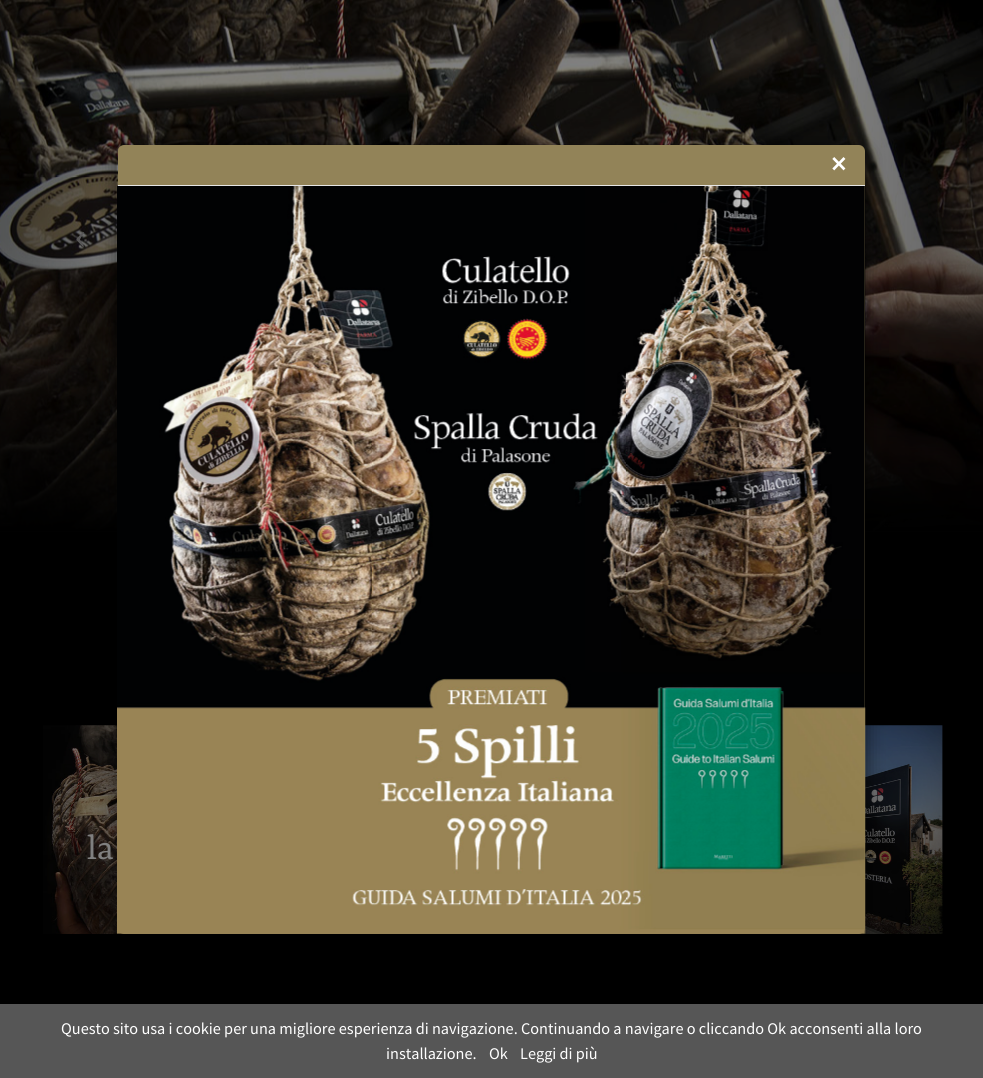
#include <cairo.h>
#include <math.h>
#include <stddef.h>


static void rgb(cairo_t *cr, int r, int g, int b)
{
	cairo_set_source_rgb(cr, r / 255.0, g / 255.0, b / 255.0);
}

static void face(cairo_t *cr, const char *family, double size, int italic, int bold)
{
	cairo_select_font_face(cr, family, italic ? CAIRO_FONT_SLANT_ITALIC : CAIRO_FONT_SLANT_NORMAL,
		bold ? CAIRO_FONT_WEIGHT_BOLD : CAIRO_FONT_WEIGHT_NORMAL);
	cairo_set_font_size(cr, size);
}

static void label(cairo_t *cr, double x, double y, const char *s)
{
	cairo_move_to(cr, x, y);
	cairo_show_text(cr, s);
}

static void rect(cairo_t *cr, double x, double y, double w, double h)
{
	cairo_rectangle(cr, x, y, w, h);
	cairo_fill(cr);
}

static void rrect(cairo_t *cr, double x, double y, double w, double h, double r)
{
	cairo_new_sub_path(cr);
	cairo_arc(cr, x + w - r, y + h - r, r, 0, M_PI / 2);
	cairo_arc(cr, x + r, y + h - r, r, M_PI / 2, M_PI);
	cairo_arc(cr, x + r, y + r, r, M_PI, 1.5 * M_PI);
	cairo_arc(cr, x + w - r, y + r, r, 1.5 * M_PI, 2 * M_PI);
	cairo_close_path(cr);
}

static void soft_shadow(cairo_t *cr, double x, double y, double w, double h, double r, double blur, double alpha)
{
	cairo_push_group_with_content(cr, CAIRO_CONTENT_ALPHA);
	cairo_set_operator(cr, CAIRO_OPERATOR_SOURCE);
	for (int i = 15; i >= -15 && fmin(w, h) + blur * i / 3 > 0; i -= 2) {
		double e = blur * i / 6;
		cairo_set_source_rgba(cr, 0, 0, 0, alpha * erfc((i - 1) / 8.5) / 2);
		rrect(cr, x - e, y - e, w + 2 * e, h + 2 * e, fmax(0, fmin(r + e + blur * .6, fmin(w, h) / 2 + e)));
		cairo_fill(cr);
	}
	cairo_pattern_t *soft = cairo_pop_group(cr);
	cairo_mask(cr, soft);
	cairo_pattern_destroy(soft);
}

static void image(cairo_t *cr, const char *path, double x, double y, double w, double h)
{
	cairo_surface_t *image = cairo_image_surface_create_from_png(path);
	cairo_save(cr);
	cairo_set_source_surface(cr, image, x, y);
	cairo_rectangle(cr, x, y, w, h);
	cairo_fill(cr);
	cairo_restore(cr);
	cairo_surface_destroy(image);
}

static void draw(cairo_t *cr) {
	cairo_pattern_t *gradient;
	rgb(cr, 255, 255, 255);
	cairo_paint(cr);
	image(cr, "image1.png", 0, 0, 983, 531);
	gradient = cairo_pattern_create_linear(0, 229, 148, 229);
	cairo_pattern_add_color_stop_rgba(gradient, 0, 0, 0, 0, 0.25);
	cairo_pattern_add_color_stop_rgba(gradient, 1, 0, 0, 0, 0);
	cairo_set_source(cr, gradient);
	cairo_pattern_destroy(gradient);
	rect(cr, 0, 0, 135, 531);
	gradient = cairo_pattern_create_linear(836, 229, 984, 229);
	cairo_pattern_add_color_stop_rgba(gradient, 0, 0, 0, 0, 0);
	cairo_pattern_add_color_stop_rgba(gradient, 1, 0, 0, 0, 0.25);
	cairo_set_source(cr, gradient);
	cairo_pattern_destroy(gradient);
	rect(cr, 849, 15, 134, 516);
	gradient = cairo_pattern_create_linear(492, 355, 492, 650);
	cairo_pattern_add_color_stop_rgba(gradient, 0, 0, 0, 0, 0);
	cairo_pattern_add_color_stop_rgba(gradient, 0.04, 0, 0, 0, 0.1);
	cairo_pattern_add_color_stop_rgba(gradient, 0.6, 0, 0, 0, 1);
	cairo_pattern_add_color_stop_rgba(gradient, 1, 0, 0, 0, 1);
	cairo_set_source(cr, gradient);
	cairo_pattern_destroy(gradient);
	rect(cr, 0, 358, 983, 292);
	rgb(cr, 0, 0, 0);
	rect(cr, 0, 650, 983, 354);
	image(cr, "image2.png", 43, 725, 81, 209);
	cairo_set_source_rgba(cr, 0, 0, 0, 0.1);
	rect(cr, 52, 725, 72, 209);
	image(cr, "image3.png", 859, 725, 84, 209);
	rect(cr, 859, 725, 84, 209);
	cairo_save(cr);
	cairo_set_fill_rule(cr, CAIRO_FILL_RULE_EVEN_ODD);
	cairo_new_path(cr);
	cairo_move_to(cr, 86, 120);
	cairo_line_to(cr, 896, 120);
	cairo_line_to(cr, 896, 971);
	cairo_line_to(cr, 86, 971);
	cairo_close_path(cr);
	cairo_move_to(cr, 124, 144);
	cairo_line_to(cr, 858, 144);
	cairo_curve_to(cr, 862.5, 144, 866, 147.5, 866, 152);
	cairo_line_to(cr, 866, 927);
	cairo_curve_to(cr, 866, 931.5, 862.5, 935, 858, 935);
	cairo_line_to(cr, 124, 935);
	cairo_curve_to(cr, 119.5, 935, 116, 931.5, 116, 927);
	cairo_line_to(cr, 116, 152);
	cairo_curve_to(cr, 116, 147.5, 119.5, 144, 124, 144);
	cairo_close_path(cr);
	cairo_clip(cr);
	rgb(cr, 0, 0, 0);
	soft_shadow(cr, 116, 150, 750, 791, 8, 9.5, 0.5);
	cairo_restore(cr);
	rgb(cr, 146, 131, 88);
	rrect(cr, 118, 145, 747, 789, 6);
	cairo_fill(cr);
	rrect(cr, 116.5, 144.5, 749, 790, 7.5);
	cairo_set_source_rgba(cr, 0, 0, 0, 0.2);
	cairo_set_line_width(cr, 1);
	cairo_stroke(cr);
	rgb(cr, 229, 229, 229);
	rect(cr, 118, 185, 747, 1);
	face(cr, "Source Sans Pro", 30, 0, 1);
	rgb(cr, 255, 255, 255);
	label(cr, 831, 174, "×");
	image(cr, "image0.png", 117, 186, 749, 748);
	face(cr, "Liberation Serif", 38, 0, 0);
	rgb(cr, 87, 86, 86);
	label(cr, 74, 248, "‹");
	face(cr, "Yrsa", 38, 0, 0);
	rgb(cr, 128, 128, 128);
	label(cr, 87, 859, "la");
	rgb(cr, 86, 86, 86);
	rect(cr, 0, 1004, 983, 74);
	face(cr, "Source Sans Pro", 16.25, 0, 0);
	rgb(cr, 255, 255, 255);
	label(cr, 61, 1034, "Questo sito usa i cookie per una migliore esperienza di navigazione. Continuando a navigare o cliccando Ok acconsenti alla loro");
	label(cr, 386, 1059, "installazione.");
	label(cr, 489, 1059, "Ok");
	label(cr, 520, 1059, "Leggi di più");
}

int main(void) {
	cairo_surface_t *surface = cairo_image_surface_create(CAIRO_FORMAT_RGB24, 983, 1078);
	cairo_t *cr = cairo_create(surface);
	cairo_font_options_t *options = cairo_font_options_create();
	cairo_font_options_set_hint_metrics(options, CAIRO_HINT_METRICS_OFF);
	cairo_font_options_set_hint_style(options, CAIRO_HINT_STYLE_NONE);
	cairo_set_font_options(cr, options);
	cairo_set_miter_limit(cr, 4);
	draw(cr);
	cairo_surface_write_to_png(surface, "render.png");
	cairo_font_options_destroy(options);
	cairo_destroy(cr);
	cairo_surface_destroy(surface);
	return 0;
}
